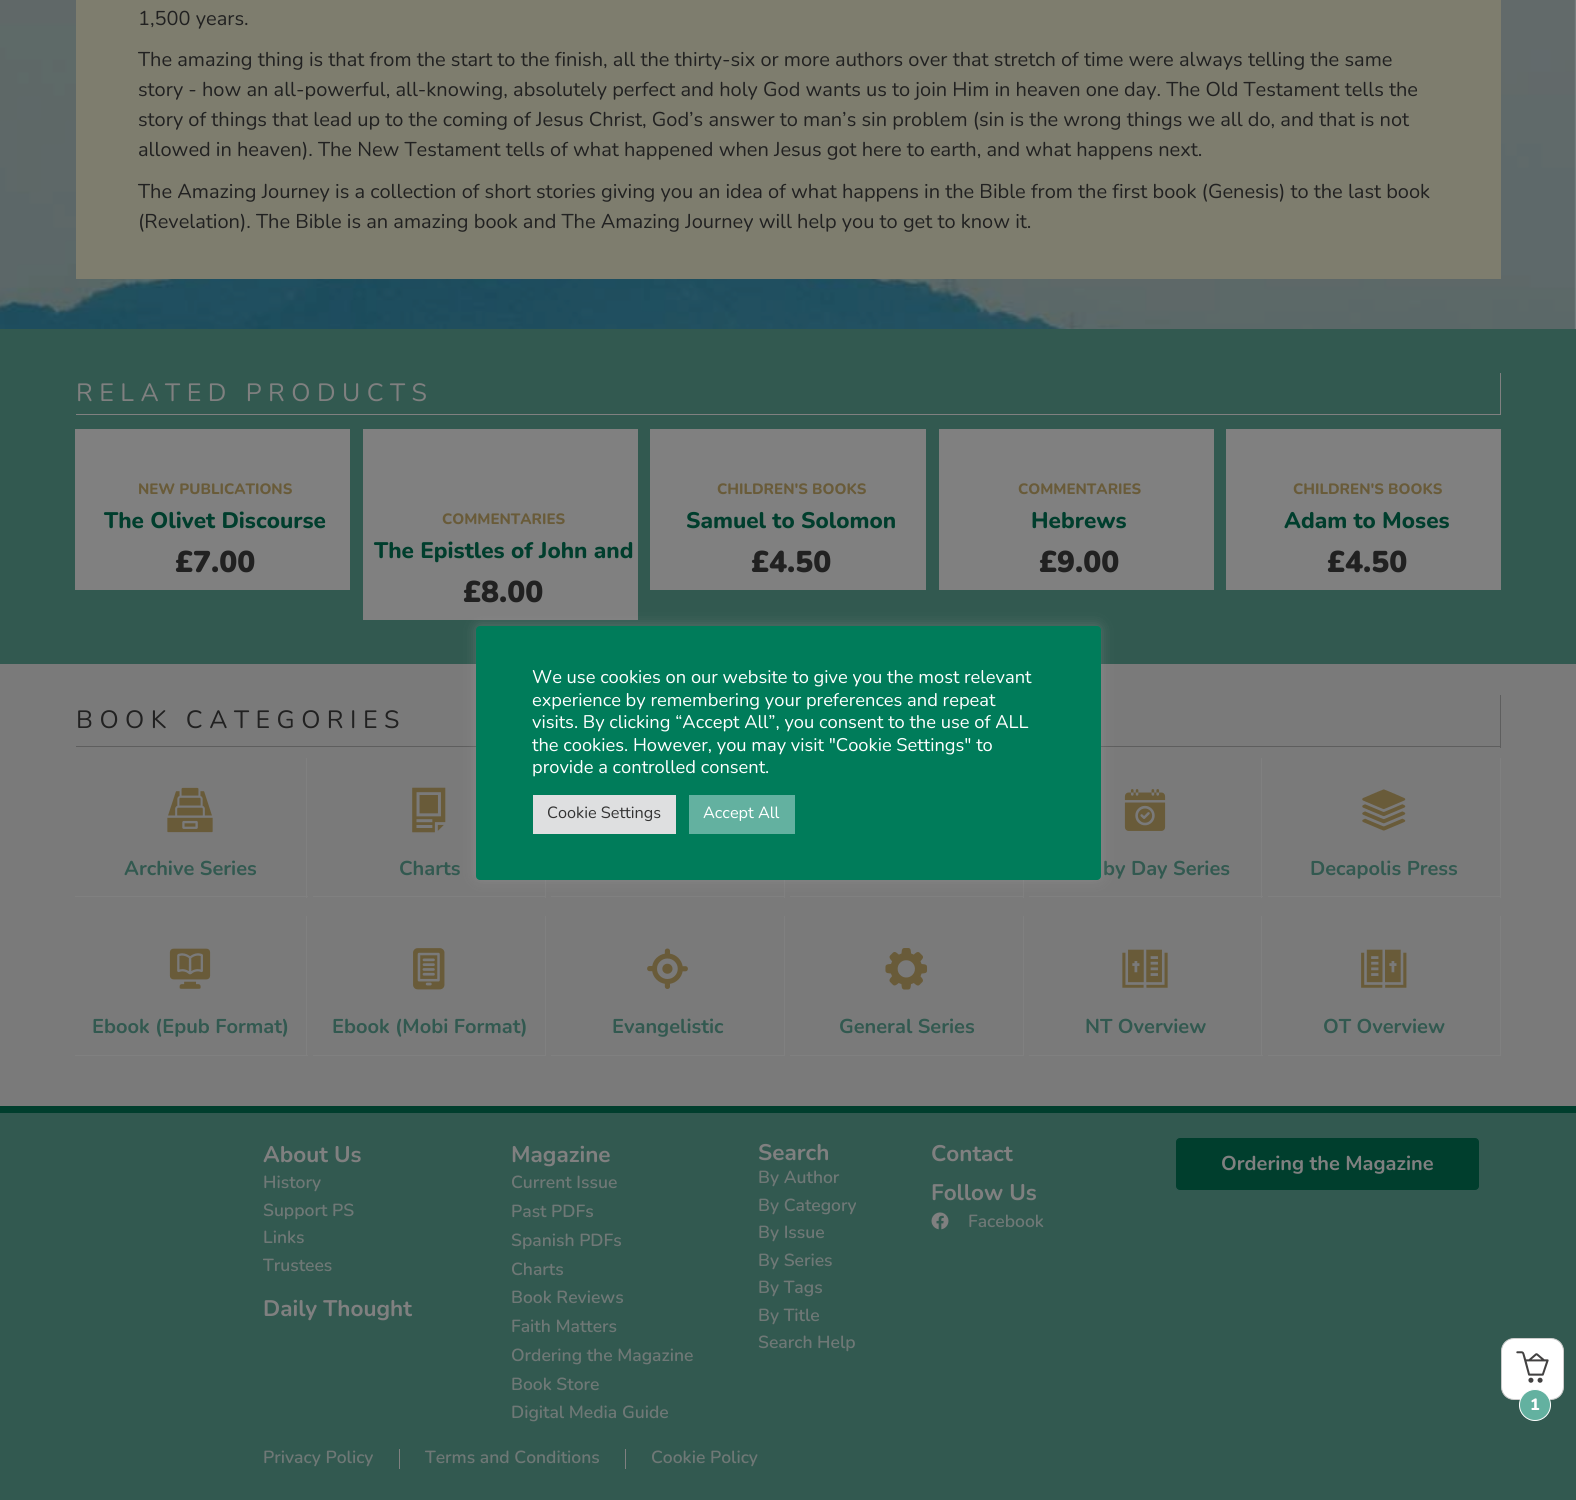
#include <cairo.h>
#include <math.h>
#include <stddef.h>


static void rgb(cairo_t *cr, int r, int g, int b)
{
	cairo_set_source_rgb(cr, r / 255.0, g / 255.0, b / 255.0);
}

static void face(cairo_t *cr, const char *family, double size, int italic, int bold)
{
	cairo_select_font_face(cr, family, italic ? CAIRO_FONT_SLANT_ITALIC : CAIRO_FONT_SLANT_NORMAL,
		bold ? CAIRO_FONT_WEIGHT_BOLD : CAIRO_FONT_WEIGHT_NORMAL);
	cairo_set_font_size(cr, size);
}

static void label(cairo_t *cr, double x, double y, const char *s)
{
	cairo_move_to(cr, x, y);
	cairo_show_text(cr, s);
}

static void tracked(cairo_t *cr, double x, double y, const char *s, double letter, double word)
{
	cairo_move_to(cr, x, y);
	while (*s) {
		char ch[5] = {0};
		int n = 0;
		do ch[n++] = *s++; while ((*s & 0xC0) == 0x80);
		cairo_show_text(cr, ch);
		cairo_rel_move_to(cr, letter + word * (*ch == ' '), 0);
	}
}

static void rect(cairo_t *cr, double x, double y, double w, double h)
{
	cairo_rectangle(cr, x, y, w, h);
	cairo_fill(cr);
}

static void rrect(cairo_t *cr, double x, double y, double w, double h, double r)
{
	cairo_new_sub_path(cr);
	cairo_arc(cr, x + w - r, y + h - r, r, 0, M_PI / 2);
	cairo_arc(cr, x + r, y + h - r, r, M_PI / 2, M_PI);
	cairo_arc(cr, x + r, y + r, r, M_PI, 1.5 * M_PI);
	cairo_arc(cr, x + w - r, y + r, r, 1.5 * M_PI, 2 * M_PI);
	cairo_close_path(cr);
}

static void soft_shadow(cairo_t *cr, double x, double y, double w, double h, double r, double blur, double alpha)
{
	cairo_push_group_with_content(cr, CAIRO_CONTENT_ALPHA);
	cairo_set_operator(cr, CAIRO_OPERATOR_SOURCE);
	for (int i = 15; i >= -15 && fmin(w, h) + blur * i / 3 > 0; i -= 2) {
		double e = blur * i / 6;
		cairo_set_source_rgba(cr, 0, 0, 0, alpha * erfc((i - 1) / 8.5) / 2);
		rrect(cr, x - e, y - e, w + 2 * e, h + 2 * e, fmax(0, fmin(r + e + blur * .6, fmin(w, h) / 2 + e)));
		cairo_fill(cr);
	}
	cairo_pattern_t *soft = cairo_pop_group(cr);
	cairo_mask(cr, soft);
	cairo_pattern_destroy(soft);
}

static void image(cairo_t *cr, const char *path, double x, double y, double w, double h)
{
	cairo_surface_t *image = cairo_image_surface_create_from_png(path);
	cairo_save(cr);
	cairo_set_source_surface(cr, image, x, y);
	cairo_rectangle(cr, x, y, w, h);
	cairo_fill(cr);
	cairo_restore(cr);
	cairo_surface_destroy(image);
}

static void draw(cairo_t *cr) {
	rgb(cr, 255, 255, 255);
	cairo_paint(cr);
	image(cr, "image0.png", 0, 0, 1576, 329);
	rgb(cr, 126, 125, 110);
	rect(cr, 76, 0, 1425, 279);
	face(cr, "Nunito", 20, 0, 0);
	rgb(cr, 33, 33, 33);
	label(cr, 138, 25, "1,500 years.");
	label(cr, 138, 66, "The amazing thing is that from the start to the finish, all the thirty-six or more authors over that stretch of time were always telling the same");
	label(cr, 138, 96, "story - how an all-powerful, all-knowing, absolutely perfect and holy God wants us to join Him in heaven one day. The Old Testament tells the");
	label(cr, 138, 126, "story of things that lead up to the coming of Jesus Christ, God’s answer to man’s sin problem (sin is the wrong things we all do, and that is not");
	label(cr, 138, 156, "allowed in heaven). The New Testament tells of what happened when Jesus got here to earth, and what happens next.");
	label(cr, 138, 198, "The Amazing Journey is a collection of short stories giving you an idea of what happens in the Bible from the first book (Genesis) to the last book");
	label(cr, 138, 228, "(Revelation). The Bible is an amazing book and The Amazing Journey will help you to get to know it.");
	rgb(cr, 50, 89, 80);
	rect(cr, 0, 329, 1576, 335);
	rgb(cr, 128, 128, 128);
	rect(cr, 1500, 373, 1, 42);
	rect(cr, 76, 414, 1425, 1);
	face(cr, "Nunito", 25, 0, 0);
	tracked(cr, 76, 401, "RELATED PRODUCTS", 6.5, 0);
	rect(cr, 75, 429, 275, 161);
	face(cr, "Nunito ExtraBold", 15, 0, 0);
	rgb(cr, 105, 91, 57);
	label(cr, 138, 494, "NEW PUBLICATIONS");
	face(cr, "Nunito ExtraBold", 22.5, 0, 0);
	rgb(cr, 0, 62, 45);
	label(cr, 104, 528, "The Olivet Discourse");
	face(cr, "Nunito Black", 30, 0, 0);
	rgb(cr, 33, 33, 33);
	label(cr, 175, 572, "£7.00");
	rgb(cr, 128, 128, 128);
	rect(cr, 363, 429, 275, 191);
	face(cr, "Nunito ExtraBold", 15, 0, 0);
	rgb(cr, 105, 91, 57);
	label(cr, 442, 524, "COMMENTARIES");
	face(cr, "Nunito ExtraBold", 22.5, 0, 0);
	rgb(cr, 0, 62, 45);
	label(cr, 374, 558, "The Epistles of John and");
	face(cr, "Nunito Black", 30, 0, 0);
	rgb(cr, 33, 33, 33);
	label(cr, 463, 602, "£8.00");
	rgb(cr, 128, 128, 128);
	rect(cr, 650, 429, 276, 161);
	face(cr, "Nunito ExtraBold", 15, 0, 0);
	rgb(cr, 105, 91, 57);
	label(cr, 717, 494, "CHILDREN'S BOOKS");
	face(cr, "Nunito ExtraBold", 22.5, 0, 0);
	rgb(cr, 0, 62, 45);
	label(cr, 686, 528, "Samuel to Solomon");
	face(cr, "Nunito Black", 30, 0, 0);
	rgb(cr, 33, 33, 33);
	label(cr, 751, 572, "£4.50");
	rgb(cr, 128, 128, 128);
	rect(cr, 939, 429, 275, 161);
	face(cr, "Nunito ExtraBold", 15, 0, 0);
	rgb(cr, 105, 91, 57);
	label(cr, 1018, 494, "COMMENTARIES");
	face(cr, "Nunito ExtraBold", 22.5, 0, 0);
	rgb(cr, 0, 62, 45);
	label(cr, 1031, 528, "Hebrews");
	face(cr, "Nunito Black", 30, 0, 0);
	rgb(cr, 33, 33, 33);
	label(cr, 1039, 572, "£9.00");
	rgb(cr, 128, 128, 128);
	rect(cr, 1226, 429, 275, 161);
	face(cr, "Nunito ExtraBold", 15, 0, 0);
	rgb(cr, 105, 91, 57);
	label(cr, 1293, 494, "CHILDREN'S BOOKS");
	face(cr, "Nunito ExtraBold", 22.5, 0, 0);
	rgb(cr, 0, 62, 45);
	label(cr, 1284, 528, "Adam to Moses");
	face(cr, "Nunito Black", 30, 0, 0);
	rgb(cr, 33, 33, 33);
	label(cr, 1327, 572, "£4.50");
	rgb(cr, 122, 122, 122);
	rect(cr, 0, 664, 1576, 442);
	rgb(cr, 94, 94, 94);
	rect(cr, 1500, 695, 1, 53);
	rect(cr, 76, 746, 1425, 1);
	face(cr, "Nunito", 25, 0, 0);
	rgb(cr, 33, 33, 33);
	tracked(cr, 76, 728, "BOOK CATEGORIES", 6.5, 0);
	rgb(cr, 128, 128, 128);
	rect(cr, 306, 758, 1, 140);
	rect(cr, 75, 896, 233, 1);
	image(cr, "image1.png", 167, 787, 46, 46);
	face(cr, "Nunito", 20, 0, 1);
	rgb(cr, 50, 89, 80);
	label(cr, 124, 875, "Archive Series");
	rgb(cr, 128, 128, 128);
	rect(cr, 545, 880, 1, 18);
	rect(cr, 313, 896, 233, 1);
	image(cr, "image2.png", 412, 787, 34, 46);
	rgb(cr, 50, 89, 80);
	label(cr, 399, 875, "Charts");
	rgb(cr, 128, 128, 128);
	rect(cr, 1261, 758, 1, 140);
	rect(cr, 1029, 896, 234, 1);
	image(cr, "image3.png", 1124, 789, 42, 42);
	rgb(cr, 50, 89, 80);
	label(cr, 1103, 875, "by Day Series");
	rgb(cr, 128, 128, 128);
	rect(cr, 1500, 758, 1, 140);
	rect(cr, 1268, 896, 233, 1);
	image(cr, "image4.png", 1362, 789, 44, 42);
	rgb(cr, 50, 89, 80);
	label(cr, 1310, 875, "Decapolis Press");
	rgb(cr, 128, 128, 128);
	rect(cr, 784, 880, 1, 18);
	rect(cr, 551, 896, 234, 1);
	rect(cr, 1023, 880, 1, 18);
	rect(cr, 790, 896, 234, 1);
	rect(cr, 306, 916, 1, 140);
	rect(cr, 75, 1055, 233, 1);
	image(cr, "image5.png", 169, 948, 42, 41);
	rgb(cr, 50, 89, 80);
	label(cr, 92, 1033, "Ebook (Epub Format)");
	rgb(cr, 128, 128, 128);
	rect(cr, 545, 916, 1, 140);
	rect(cr, 313, 1055, 233, 1);
	image(cr, "image6.png", 413, 948, 32, 42);
	rgb(cr, 50, 89, 80);
	label(cr, 332, 1033, "Ebook (Mobi Format)");
	rgb(cr, 128, 128, 128);
	rect(cr, 784, 916, 1, 140);
	rect(cr, 551, 1055, 234, 1);
	image(cr, "image7.png", 647, 948, 41, 41);
	rgb(cr, 50, 89, 80);
	label(cr, 612, 1033, "Evangelistic");
	rgb(cr, 128, 128, 128);
	rect(cr, 1023, 916, 1, 140);
	rect(cr, 790, 1055, 234, 1);
	image(cr, "image8.png", 885, 948, 43, 42);
	rgb(cr, 50, 89, 80);
	label(cr, 839, 1033, "General Series");
	rgb(cr, 128, 128, 128);
	rect(cr, 1261, 916, 1, 140);
	rect(cr, 1029, 1055, 234, 1);
	image(cr, "image9.png", 1122, 949, 46, 39);
	rgb(cr, 50, 89, 80);
	label(cr, 1085, 1033, "NT Overview");
	rgb(cr, 128, 128, 128);
	rect(cr, 1500, 916, 1, 140);
	rect(cr, 1268, 1055, 233, 1);
	image(cr, "image10.png", 1361, 949, 46, 39);
	rgb(cr, 50, 89, 80);
	label(cr, 1323, 1033, "OT Overview");
	rgb(cr, 172, 171, 171);
	soft_shadow(cr, 476, 625, 625, 254, 4, 6, 0.3);
	rgb(cr, 0, 124, 90);
	rrect(cr, 476, 626, 625, 254, 4);
	cairo_fill(cr);
	face(cr, "Nunito", 18.3, 0, 0);
	rgb(cr, 255, 255, 255);
	label(cr, 532, 683, "We use cookies on our website to give you the most relevant");
	label(cr, 532, 706, "experience by remembering your preferences and repeat");
	label(cr, 532, 728, "visits. By clicking “Accept All”, you consent to the use of ALL");
	label(cr, 532, 751, "the cookies. However, you may visit \"Cookie Settings\" to");
	label(cr, 532, 773, "provide a controlled consent.");
	rgb(cr, 222, 223, 224);
	rect(cr, 533, 795, 143, 39);
	face(cr, "Nunito", 16.25, 0, 0);
	rgb(cr, 51, 51, 51);
	label(cr, 547, 818, "Cookie Settings");
	rgb(cr, 99, 177, 160);
	rect(cr, 689, 795, 106, 39);
	rgb(cr, 255, 255, 255);
	label(cr, 703, 818, "Accept All");
	rgb(cr, 50, 89, 80);
	rect(cr, 0, 1113, 1576, 387);
	rgb(cr, 0, 62, 45);
	rect(cr, 0, 1106, 1576, 7);
	face(cr, "Nunito", 22.5, 0, 1);
	rgb(cr, 128, 128, 128);
	label(cr, 263, 1162, "About Us");
	face(cr, "Nunito SemiBold", 17.5, 0, 0);
	rgb(cr, 111, 120, 118);
	label(cr, 263, 1188, "History");
	label(cr, 263, 1216, "Support PS");
	label(cr, 263, 1243, "Links");
	label(cr, 263, 1271, "Trustees");
	face(cr, "Nunito", 22.5, 0, 1);
	rgb(cr, 128, 128, 128);
	label(cr, 263, 1316, "Daily Thought");
	label(cr, 511, 1162, "Magazine");
	face(cr, "Nunito SemiBold", 17.5, 0, 0);
	rgb(cr, 111, 120, 118);
	label(cr, 511, 1188, "Current Issue");
	label(cr, 511, 1217, "Past PDFs");
	label(cr, 511, 1246, "Spanish PDFs");
	label(cr, 511, 1275, "Charts");
	label(cr, 511, 1303, "Book Reviews");
	label(cr, 511, 1332, "Faith Matters");
	label(cr, 511, 1361, "Ordering the Magazine");
	label(cr, 511, 1390, "Book Store");
	label(cr, 511, 1418, "Digital Media Guide");
	face(cr, "Nunito", 22.5, 0, 1);
	rgb(cr, 128, 128, 128);
	label(cr, 758, 1160, "Search");
	face(cr, "Nunito SemiBold", 17.5, 0, 0);
	rgb(cr, 111, 120, 118);
	label(cr, 758, 1183, "By Author");
	label(cr, 758, 1211, "By Category");
	label(cr, 758, 1238, "By Issue");
	label(cr, 758, 1266, "By Series");
	label(cr, 758, 1293, "By Tags");
	label(cr, 758, 1321, "By Title");
	label(cr, 758, 1348, "Search Help");
	face(cr, "Nunito", 22.5, 0, 1);
	rgb(cr, 128, 128, 128);
	label(cr, 931, 1161, "Contact");
	label(cr, 931, 1200, "Follow Us");
	image(cr, "image11.png", 931, 1212, 18, 18);
	face(cr, "Nunito SemiBold", 17.5, 0, 0);
	rgb(cr, 111, 120, 118);
	label(cr, 968, 1227, "Facebook");
	rgb(cr, 0, 62, 45);
	rrect(cr, 1176.5, 1138.5, 302, 51, 3.5);
	cairo_fill_preserve(cr);
	cairo_set_line_width(cr, 1);
	cairo_stroke(cr);
	face(cr, "Nunito", 20, 0, 1);
	rgb(cr, 128, 128, 128);
	label(cr, 1221, 1170, "Ordering the Magazine");
	face(cr, "Nunito SemiBold", 17.5, 0, 0);
	rgb(cr, 111, 120, 118);
	label(cr, 263, 1463, "Privacy Policy");
	rgb(cr, 128, 128, 128);
	rect(cr, 399, 1449, 1, 20);
	rgb(cr, 111, 120, 118);
	label(cr, 425, 1463, "Terms and Conditions");
	rgb(cr, 128, 128, 128);
	rect(cr, 625, 1449, 1, 20);
	rgb(cr, 111, 120, 118);
	label(cr, 651, 1463, "Cookie Policy");
	rgb(cr, 255, 255, 255);
	rrect(cr, 1501.5, 1338.5, 62, 61, 12.5);
	cairo_fill_preserve(cr);
	rgb(cr, 204, 204, 204);
	cairo_stroke(cr);
	image(cr, "image12.png", 1516, 1351, 33, 32);
	rgb(cr, 99, 177, 160);
	cairo_arc(cr, 1535, 1405, 15.5, 0, 2 * M_PI);
	cairo_fill_preserve(cr);
	rgb(cr, 255, 255, 255);
	cairo_stroke(cr);
	face(cr, "Nunito ExtraBold", 16.25, 0, 0);
	label(cr, 1530, 1410, "1");
}

int main(void) {
	cairo_surface_t *surface = cairo_image_surface_create(CAIRO_FORMAT_RGB24, 1576, 1500);
	cairo_t *cr = cairo_create(surface);
	cairo_font_options_t *options = cairo_font_options_create();
	cairo_font_options_set_hint_metrics(options, CAIRO_HINT_METRICS_OFF);
	cairo_font_options_set_hint_style(options, CAIRO_HINT_STYLE_NONE);
	cairo_set_font_options(cr, options);
	cairo_set_miter_limit(cr, 4);
	draw(cr);
	cairo_surface_write_to_png(surface, "render.png");
	cairo_font_options_destroy(options);
	cairo_destroy(cr);
	cairo_surface_destroy(surface);
	return 0;
}
